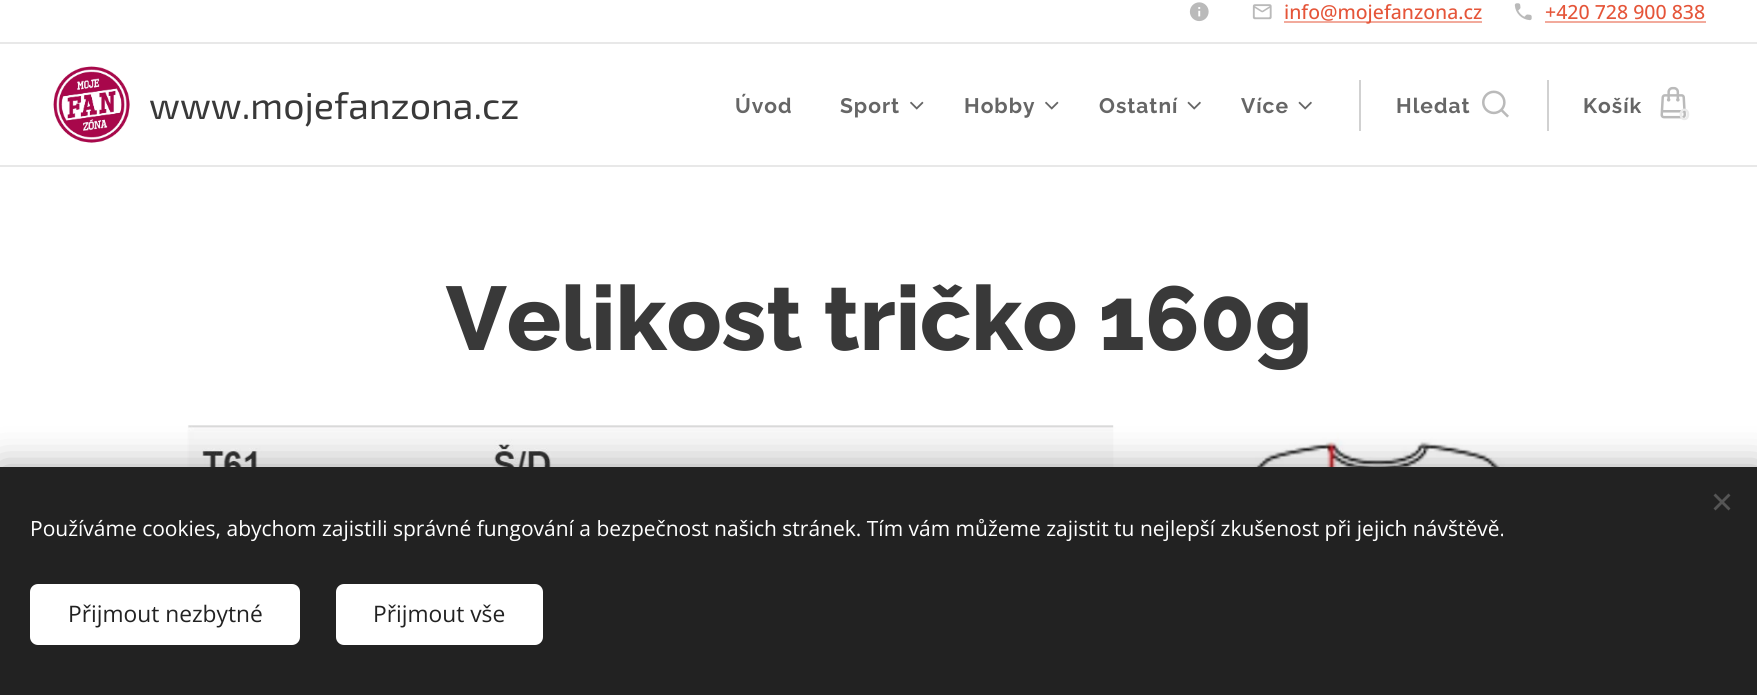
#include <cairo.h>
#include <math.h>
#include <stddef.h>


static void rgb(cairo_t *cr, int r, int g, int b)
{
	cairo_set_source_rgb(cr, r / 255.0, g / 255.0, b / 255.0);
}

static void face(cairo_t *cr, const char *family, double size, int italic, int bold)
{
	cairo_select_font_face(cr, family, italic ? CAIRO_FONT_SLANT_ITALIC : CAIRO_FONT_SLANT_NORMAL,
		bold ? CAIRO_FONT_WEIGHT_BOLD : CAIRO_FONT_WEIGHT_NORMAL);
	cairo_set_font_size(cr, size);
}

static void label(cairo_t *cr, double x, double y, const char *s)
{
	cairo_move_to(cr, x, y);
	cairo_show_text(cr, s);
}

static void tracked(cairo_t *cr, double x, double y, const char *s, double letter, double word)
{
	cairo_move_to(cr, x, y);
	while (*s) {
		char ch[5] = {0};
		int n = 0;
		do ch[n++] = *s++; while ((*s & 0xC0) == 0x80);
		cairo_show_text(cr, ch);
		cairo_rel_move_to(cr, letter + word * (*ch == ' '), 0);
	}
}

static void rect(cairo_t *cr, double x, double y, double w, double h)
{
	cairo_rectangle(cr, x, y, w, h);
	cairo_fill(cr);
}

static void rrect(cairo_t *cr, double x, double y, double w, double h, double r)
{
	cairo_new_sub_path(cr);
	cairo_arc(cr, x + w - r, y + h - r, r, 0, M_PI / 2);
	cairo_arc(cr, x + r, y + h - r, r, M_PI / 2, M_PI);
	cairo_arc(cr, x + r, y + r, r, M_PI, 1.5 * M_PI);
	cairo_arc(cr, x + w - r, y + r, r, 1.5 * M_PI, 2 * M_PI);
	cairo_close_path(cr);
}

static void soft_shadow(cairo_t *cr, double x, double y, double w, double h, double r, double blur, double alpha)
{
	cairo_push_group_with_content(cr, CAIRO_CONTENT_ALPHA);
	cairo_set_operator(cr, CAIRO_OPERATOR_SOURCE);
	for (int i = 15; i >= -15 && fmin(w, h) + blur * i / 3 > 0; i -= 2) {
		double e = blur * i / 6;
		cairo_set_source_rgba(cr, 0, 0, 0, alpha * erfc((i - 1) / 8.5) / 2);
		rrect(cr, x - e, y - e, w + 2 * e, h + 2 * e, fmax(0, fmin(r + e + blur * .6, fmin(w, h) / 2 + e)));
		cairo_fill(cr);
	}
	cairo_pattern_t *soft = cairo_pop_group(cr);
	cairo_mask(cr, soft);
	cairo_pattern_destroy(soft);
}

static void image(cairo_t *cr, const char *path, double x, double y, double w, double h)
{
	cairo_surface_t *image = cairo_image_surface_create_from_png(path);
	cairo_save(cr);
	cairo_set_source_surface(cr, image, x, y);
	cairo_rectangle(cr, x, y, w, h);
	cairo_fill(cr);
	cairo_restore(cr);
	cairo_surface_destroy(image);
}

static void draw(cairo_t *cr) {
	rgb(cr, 255, 255, 255);
	cairo_paint(cr);
	image(cr, "image0.png", 1189, 2, 20, 20);
	image(cr, "image1.png", 1252, 4, 20, 16);
	rgb(cr, 242, 170, 156);
	rect(cr, 1284, 21, 198, 2);
	face(cr, "Open Sans Medium", 19.5, 0, 0);
	rgb(cr, 229, 85, 57);
	label(cr, 1284, 19, "info@mojefanzona.cz");
	image(cr, "image2.png", 1514, 3, 18, 18);
	label(cr, 1545, 19, "+420 728 900 838");
	rgb(cr, 242, 170, 156);
	rect(cr, 1545, 21, 161, 2);
	rgb(cr, 232, 232, 232);
	rect(cr, 0, 42, 1757, 2);
	image(cr, "image3.png", 53, 66, 77, 77);
	face(cr, "Exo 2", 37.5, 0, 0);
	rgb(cr, 57, 57, 57);
	label(cr, 149, 119, "www.mojefanzona.cz");
	face(cr, "Raleway", 21, 0, 1);
	rgb(cr, 102, 102, 102);
	tracked(cr, 735, 113, "Úvod", 1, 0);
	tracked(cr, 840, 113, "Sport", 1, 0);
	image(cr, "image4.png", 910, 101, 14, 9);
	tracked(cr, 964, 113, "Hobby", 1, 0);
	image(cr, "image4.png", 1045, 101, 14, 9);
	tracked(cr, 1099, 113, "Ostatní", 1, 0);
	image(cr, "image5.png", 1187, 101, 14, 9);
	tracked(cr, 1241, 113, "Více", 1, 0);
	image(cr, "image5.png", 1298, 101, 14, 9);
	rgb(cr, 209, 209, 209);
	rect(cr, 1359, 80, 2, 51);
	rgb(cr, 102, 102, 102);
	tracked(cr, 1396, 113, "Hledat", 1, 0);
	image(cr, "image6.png", 1482, 90, 27, 28);
	rgb(cr, 209, 209, 209);
	rect(cr, 1547, 80, 2, 51);
	rgb(cr, 102, 102, 102);
	tracked(cr, 1583, 113, "Košík", 1, 0);
	image(cr, "image7.png", 1660, 86, 26, 33);
	face(cr, "Montserrat", 16, 0, 1);
	rgb(cr, 235, 235, 235);
	label(cr, 1679, 120, "0");
	rgb(cr, 232, 232, 232);
	rect(cr, 0, 165, 1757, 2);
	face(cr, "Raleway ExtraBold", 90, 0, 0);
	rgb(cr, 57, 57, 57);
	label(cr, 446, 350, "Velikost tričko 160g");
	image(cr, "image8.png", 187, 425, 1368, 42);
	rgb(cr, 0, 0, 0);
	soft_shadow(cr, 0, 467, 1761, 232, 0, 19, 0.33);
	rgb(cr, 34, 34, 34);
	rect(cr, 0, 467, 1757, 228);
	rgb(cr, 85, 85, 85);
	cairo_new_path(cr);
	cairo_move_to(cr, 1713.5, 508.5);
	cairo_line_to(cr, 1728.5, 493.5);
	cairo_line_to(cr, 1730.5, 495.5);
	cairo_line_to(cr, 1715.5, 510.5);
	cairo_close_path(cr);
	cairo_fill(cr);
	cairo_new_path(cr);
	cairo_move_to(cr, 1715.5, 493.5);
	cairo_line_to(cr, 1730.5, 508.5);
	cairo_line_to(cr, 1728.5, 510.5);
	cairo_line_to(cr, 1713.5, 495.5);
	cairo_close_path(cr);
	cairo_fill(cr);
	face(cr, "Open Sans", 21, 0, 0);
	rgb(cr, 255, 255, 255);
	label(cr, 30, 536, "Používáme cookies, abychom zajistili správné fungování a bezpečnost našich stránek. Tím vám můžeme zajistit tu nejlepší zkušenost při jejich návštěvě.");
	rrect(cr, 30, 584, 270, 61, 8);
	cairo_fill(cr);
	face(cr, "Open Sans", 22.75, 0, 0);
	rgb(cr, 34, 34, 34);
	label(cr, 68, 622, "Přijmout nezbytné");
	rgb(cr, 255, 255, 255);
	rrect(cr, 336, 584, 207, 61, 8);
	cairo_fill(cr);
	rgb(cr, 34, 34, 34);
	label(cr, 373, 622, "Přijmout vše");
}

int main(void) {
	cairo_surface_t *surface = cairo_image_surface_create(CAIRO_FORMAT_RGB24, 1757, 695);
	cairo_t *cr = cairo_create(surface);
	cairo_font_options_t *options = cairo_font_options_create();
	cairo_font_options_set_hint_metrics(options, CAIRO_HINT_METRICS_OFF);
	cairo_font_options_set_hint_style(options, CAIRO_HINT_STYLE_NONE);
	cairo_set_font_options(cr, options);
	cairo_set_miter_limit(cr, 4);
	draw(cr);
	cairo_surface_write_to_png(surface, "render.png");
	cairo_font_options_destroy(options);
	cairo_destroy(cr);
	cairo_surface_destroy(surface);
	return 0;
}
